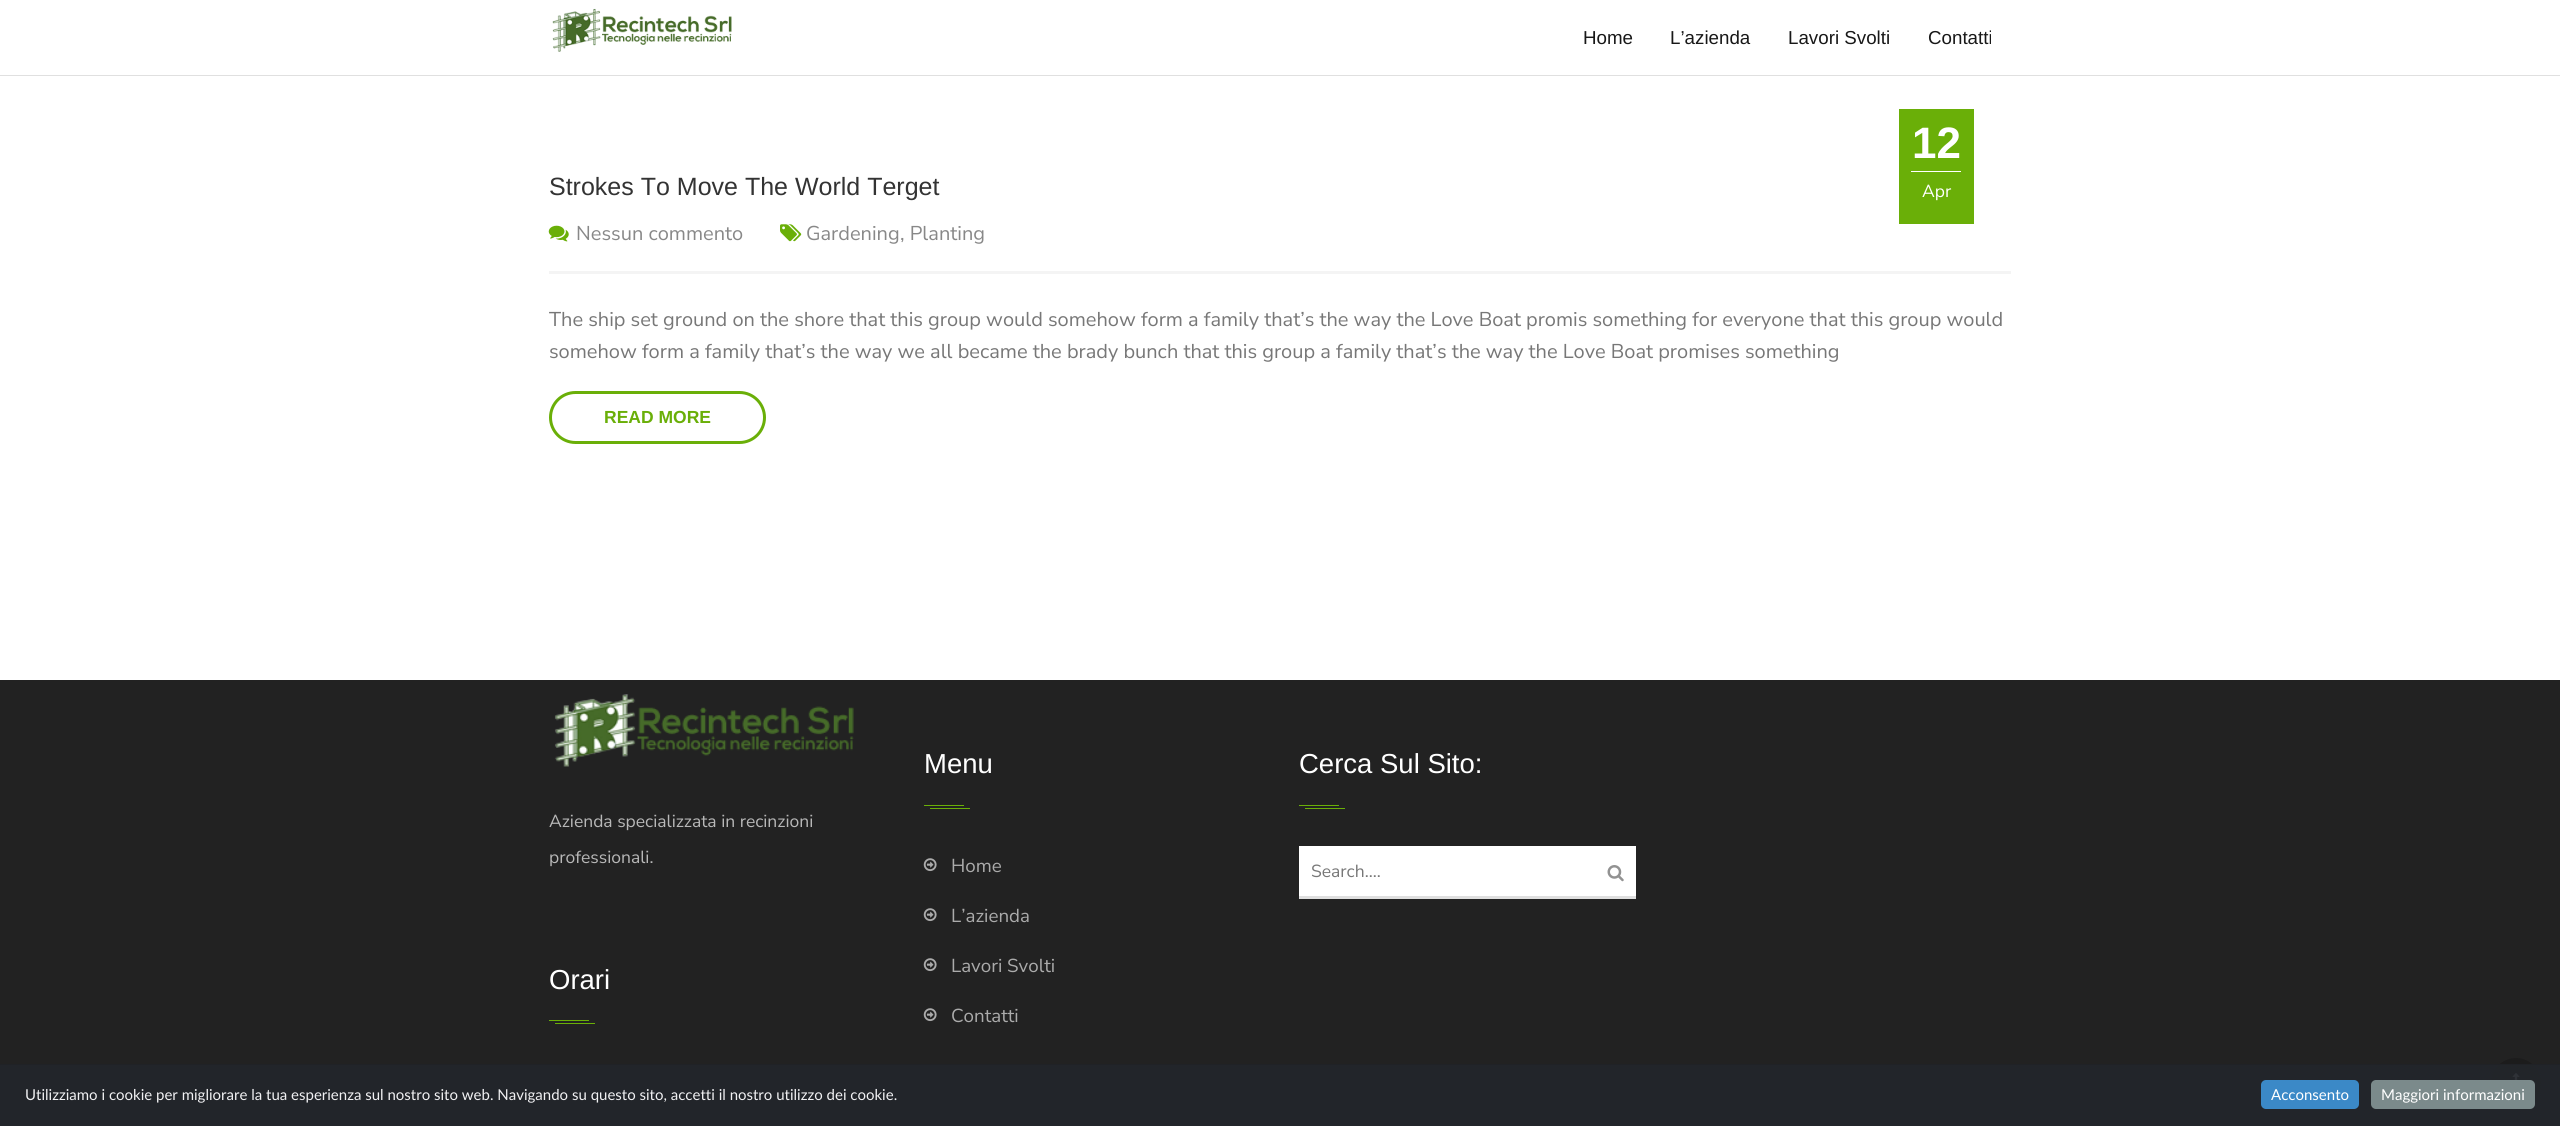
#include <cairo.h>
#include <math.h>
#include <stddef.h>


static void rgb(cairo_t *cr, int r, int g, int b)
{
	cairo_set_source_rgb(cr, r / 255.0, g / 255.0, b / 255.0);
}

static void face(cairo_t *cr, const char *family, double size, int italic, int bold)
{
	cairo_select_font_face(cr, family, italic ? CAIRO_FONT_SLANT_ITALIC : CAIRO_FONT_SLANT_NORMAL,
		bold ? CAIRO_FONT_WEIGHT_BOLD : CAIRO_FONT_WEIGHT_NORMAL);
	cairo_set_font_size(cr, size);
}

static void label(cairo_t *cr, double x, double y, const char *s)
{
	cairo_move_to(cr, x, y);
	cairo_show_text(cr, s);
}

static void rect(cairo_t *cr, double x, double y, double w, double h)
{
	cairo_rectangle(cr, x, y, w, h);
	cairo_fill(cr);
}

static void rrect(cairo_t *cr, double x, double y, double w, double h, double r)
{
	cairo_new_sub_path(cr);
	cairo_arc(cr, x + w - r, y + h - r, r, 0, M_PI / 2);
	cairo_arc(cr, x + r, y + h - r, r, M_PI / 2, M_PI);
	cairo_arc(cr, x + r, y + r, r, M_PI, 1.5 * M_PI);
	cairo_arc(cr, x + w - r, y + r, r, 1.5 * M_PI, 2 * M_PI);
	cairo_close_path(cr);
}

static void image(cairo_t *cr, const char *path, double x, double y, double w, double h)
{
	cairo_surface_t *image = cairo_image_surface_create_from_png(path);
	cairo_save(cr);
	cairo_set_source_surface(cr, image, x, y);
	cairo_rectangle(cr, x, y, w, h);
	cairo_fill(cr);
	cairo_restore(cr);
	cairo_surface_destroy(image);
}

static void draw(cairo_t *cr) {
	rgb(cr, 255, 255, 255);
	cairo_paint(cr);
	rgb(cr, 224, 224, 224);
	rect(cr, 0, 75, 2560, 1);
	image(cr, "image0.png", 552, 8, 180, 44);
	face(cr, "Liberation Sans", 18.75, 0, 0);
	rgb(cr, 24, 24, 24);
	label(cr, 1583, 44, "Home");
	label(cr, 1670, 44, "L’azienda");
	label(cr, 1788, 44, "Lavori Svolti");
	label(cr, 1928, 44, "Contatti");
	rgb(cr, 244, 244, 244);
	rect(cr, 549, 271, 1462, 3);
	face(cr, "Liberation Sans", 25, 0, 0);
	rgb(cr, 51, 51, 51);
	label(cr, 549, 195, "Strokes To Move The World Terget");
	rgb(cr, 106, 175, 8);
	rect(cr, 1899, 109, 75, 115);
	rgb(cr, 255, 255, 255);
	rect(cr, 1911, 171, 50, 1);
	face(cr, "Liberation Sans", 44, 0, 1);
	label(cr, 1912, 158, "12");
	face(cr, "Nunito Sans", 17.5, 0, 0);
	label(cr, 1922, 197, "Apr");
	image(cr, "image1.png", 548, 225, 21, 17);
	face(cr, "Nunito Sans", 20, 0, 0);
	rgb(cr, 136, 136, 136);
	label(cr, 576, 240, "Nessun commento");
	image(cr, "image2.png", 780, 224, 22, 18);
	label(cr, 806, 240, "Gardening");
	label(cr, 900, 240, ", Planting");
	rgb(cr, 119, 119, 119);
	label(cr, 549, 326, "The ship set ground on the shore that this group would somehow form a family that’s the way the Love Boat promis something for everyone that this group would");
	label(cr, 549, 358, "somehow form a family that’s the way we all became the brady bunch that this group a family that’s the way the Love Boat promises something");
	rrect(cr, 550.5, 392.5, 214, 50, 25);
	rgb(cr, 106, 175, 8);
	cairo_set_line_width(cr, 3);
	cairo_stroke(cr);
	face(cr, "Liberation Sans", 17.5, 0, 1);
	label(cr, 604, 423, "READ MORE");
	rgb(cr, 34, 34, 34);
	rect(cr, 0, 680, 2560, 446);
	image(cr, "image3.png", 554, 694, 300, 73);
	face(cr, "Nunito Sans", 17.5, 0, 0);
	rgb(cr, 184, 184, 184);
	label(cr, 549, 827, "Azienda specializzata in recinzioni");
	label(cr, 549, 863, "professionali.");
	face(cr, "Liberation Sans", 27.5, 0, 0);
	rgb(cr, 255, 255, 255);
	label(cr, 549, 989, "Orari");
	rgb(cr, 106, 175, 8);
	rect(cr, 549, 1020, 40, 1);
	rect(cr, 555, 1023, 40, 1);
	rgb(cr, 255, 255, 255);
	label(cr, 924, 773, "Menu");
	rgb(cr, 106, 175, 8);
	rect(cr, 924, 805, 40, 1);
	rect(cr, 930, 808, 40, 1);
	image(cr, "image4.png", 923, 858, 14, 14);
	face(cr, "Nunito Sans", 18.75, 0, 0);
	rgb(cr, 171, 171, 171);
	label(cr, 951, 872, "Home");
	image(cr, "image4.png", 923, 908, 14, 14);
	label(cr, 951, 922, "L’azienda");
	image(cr, "image4.png", 923, 958, 14, 14);
	label(cr, 951, 972, "Lavori Svolti");
	image(cr, "image4.png", 923, 1008, 14, 14);
	label(cr, 951, 1022, "Contatti");
	face(cr, "Liberation Sans", 27.5, 0, 0);
	rgb(cr, 255, 255, 255);
	label(cr, 1299, 773, "Cerca Sul Sito:");
	rgb(cr, 106, 175, 8);
	rect(cr, 1299, 805, 40, 1);
	rect(cr, 1305, 808, 40, 1);
	rgb(cr, 255, 255, 255);
	rect(cr, 1299, 846, 337, 50);
	rgb(cr, 223, 223, 223);
	rect(cr, 1299, 896, 337, 3);
	face(cr, "Nunito Sans", 17.5, 0, 0);
	rgb(cr, 119, 119, 119);
	label(cr, 1311, 877, "Search....");
	image(cr, "image5.png", 1607, 865, 17, 17);
	rgb(cr, 28, 28, 28);
	cairo_arc(cr, 2516, 1083, 25, 0, 2 * M_PI);
	cairo_fill(cr);
	image(cr, "image6.png", 2512, 1073, 8, 7);
	cairo_set_source_rgba(cr, 0.196, 0.227, 0.271, 0.7);
	rect(cr, 0, 1065, 2560, 61);
	rgb(cr, 32, 34, 38);
	rect(cr, 0, 1064, 2560, 1);
	cairo_set_source_rgba(cr, 0.125, 0.133, 0.149, 0.8);
	rect(cr, 0, 1065, 2560, 61);
	face(cr, "Lato", 15, 0, 0);
	rgb(cr, 241, 241, 243);
	label(cr, 25, 1100, "Utilizziamo i cookie per migliorare la tua esperienza sul nostro sito web. Navigando su questo sito, accetti il nostro utilizzo dei cookie.");
	rgb(cr, 59, 137, 199);
	rrect(cr, 2261, 1080, 98, 29, 5);
	cairo_fill(cr);
	rgb(cr, 255, 255, 255);
	label(cr, 2271, 1100, "Acconsento");
	rgb(cr, 123, 138, 139);
	rrect(cr, 2371, 1080, 164, 29, 5);
	cairo_fill(cr);
	rgb(cr, 255, 255, 255);
	label(cr, 2381, 1100, "Maggiori informazioni");
}

int main(void) {
	cairo_surface_t *surface = cairo_image_surface_create(CAIRO_FORMAT_RGB24, 2560, 1126);
	cairo_t *cr = cairo_create(surface);
	cairo_font_options_t *options = cairo_font_options_create();
	cairo_font_options_set_hint_metrics(options, CAIRO_HINT_METRICS_OFF);
	cairo_font_options_set_hint_style(options, CAIRO_HINT_STYLE_NONE);
	cairo_set_font_options(cr, options);
	cairo_set_miter_limit(cr, 4);
	draw(cr);
	cairo_surface_write_to_png(surface, "render.png");
	cairo_font_options_destroy(options);
	cairo_destroy(cr);
	cairo_surface_destroy(surface);
	return 0;
}
